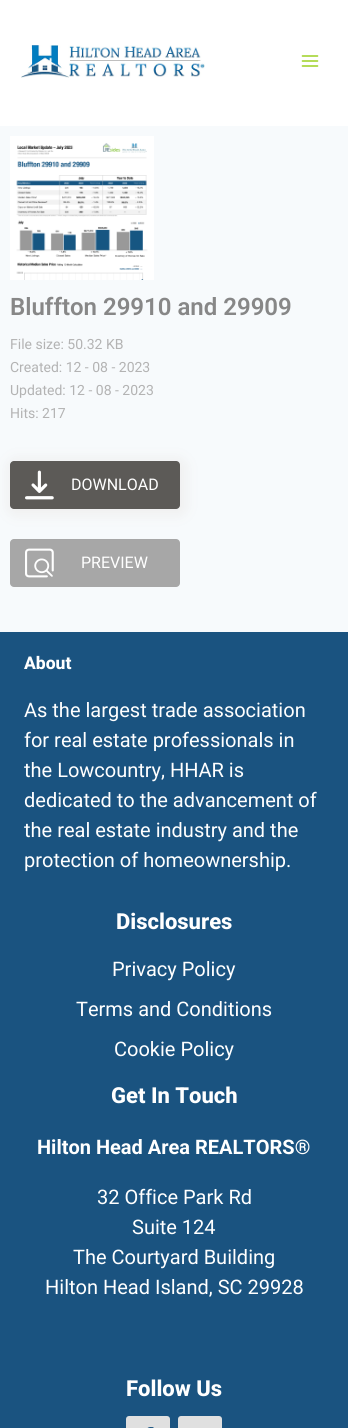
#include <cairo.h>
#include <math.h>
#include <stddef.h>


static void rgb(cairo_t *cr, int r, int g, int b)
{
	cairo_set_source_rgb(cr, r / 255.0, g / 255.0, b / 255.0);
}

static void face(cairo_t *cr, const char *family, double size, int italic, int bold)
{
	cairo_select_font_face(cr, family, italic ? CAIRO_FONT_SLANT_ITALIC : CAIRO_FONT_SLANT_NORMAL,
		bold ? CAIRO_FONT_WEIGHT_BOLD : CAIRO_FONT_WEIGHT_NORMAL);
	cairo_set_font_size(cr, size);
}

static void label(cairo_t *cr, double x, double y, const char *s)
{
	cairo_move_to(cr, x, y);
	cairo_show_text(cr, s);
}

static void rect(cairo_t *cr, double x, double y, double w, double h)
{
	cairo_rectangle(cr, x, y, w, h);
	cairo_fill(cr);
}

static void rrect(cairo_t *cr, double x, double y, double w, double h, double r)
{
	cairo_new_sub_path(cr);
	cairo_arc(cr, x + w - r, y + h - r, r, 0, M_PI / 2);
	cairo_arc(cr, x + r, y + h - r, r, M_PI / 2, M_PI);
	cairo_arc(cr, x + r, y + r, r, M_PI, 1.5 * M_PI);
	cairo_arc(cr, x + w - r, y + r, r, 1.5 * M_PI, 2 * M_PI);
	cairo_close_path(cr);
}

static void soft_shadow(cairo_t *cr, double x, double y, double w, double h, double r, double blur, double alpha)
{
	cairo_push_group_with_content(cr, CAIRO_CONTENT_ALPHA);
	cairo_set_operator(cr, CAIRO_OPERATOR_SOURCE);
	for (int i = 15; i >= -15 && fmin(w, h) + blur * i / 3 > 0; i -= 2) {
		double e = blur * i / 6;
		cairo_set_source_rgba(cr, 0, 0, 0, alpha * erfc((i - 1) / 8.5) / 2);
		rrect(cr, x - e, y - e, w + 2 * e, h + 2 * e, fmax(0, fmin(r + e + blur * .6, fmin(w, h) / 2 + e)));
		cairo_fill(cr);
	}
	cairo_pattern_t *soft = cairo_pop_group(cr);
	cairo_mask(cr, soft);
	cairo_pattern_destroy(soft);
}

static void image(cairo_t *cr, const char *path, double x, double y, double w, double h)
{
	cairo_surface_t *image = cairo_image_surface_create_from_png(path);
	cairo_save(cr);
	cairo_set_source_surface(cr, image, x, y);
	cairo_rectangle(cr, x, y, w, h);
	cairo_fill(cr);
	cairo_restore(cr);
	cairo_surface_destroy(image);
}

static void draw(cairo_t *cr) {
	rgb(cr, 247, 250, 252);
	cairo_paint(cr);
	rgb(cr, 255, 255, 255);
	rect(cr, 0, 0, 348, 126);
	image(cr, "image0.png", 21, 45, 184, 33);
	image(cr, "image1.png", 301, 55, 18, 12);
	image(cr, "image2.png", 10, 136, 144, 144);
	face(cr, "Roboto SemiBold", 24, 0, 0);
	rgb(cr, 135, 135, 135);
	label(cr, 10, 315, "Bluffton 29910 and 29909");
	face(cr, "Roboto", 14, 0, 0);
	rgb(cr, 179, 179, 179);
	label(cr, 10, 349, "File size: 50.32 KB");
	label(cr, 10, 372, "Created: 12 - 08 - 2023");
	label(cr, 10, 395, "Updated: 12 - 08 - 2023");
	label(cr, 10, 418, "Hits: 217");
	rgb(cr, 240, 240, 240);
	soft_shadow(cr, 7, 458, 180, 58, 9, 6, 1);
	rgb(cr, 92, 90, 87);
	rrect(cr, 10, 461, 170, 48, 4);
	cairo_fill(cr);
	image(cr, "image3.png", 25, 470, 29, 30);
	face(cr, "Roboto", 16, 0, 0);
	rgb(cr, 255, 255, 255);
	label(cr, 71, 490, "DOWNLOAD");
	rgb(cr, 167, 167, 167);
	rrect(cr, 10, 539, 170, 48, 4);
	cairo_fill(cr);
	image(cr, "image4.png", 25, 548, 29, 30);
	rgb(cr, 255, 255, 255);
	label(cr, 81, 568, "PREVIEW");
	rgb(cr, 26, 83, 128);
	rect(cr, 0, 632, 348, 796);
	face(cr, "Roboto ExtraBold", 17.5, 0, 0);
	rgb(cr, 255, 255, 255);
	label(cr, 24, 669, "About");
	face(cr, "Roboto", 20, 0, 0);
	label(cr, 24, 717, "As the largest trade association");
	label(cr, 24, 747, "for real estate professionals in");
	label(cr, 24, 777, "the Lowcountry, HHAR is");
	label(cr, 24, 807, "dedicated to the advancement of");
	label(cr, 24, 837, "the real estate industry and the");
	label(cr, 24, 867, "protection of homeownership.");
	face(cr, "Roboto ExtraBold", 22, 0, 0);
	label(cr, 116, 929, "Disclosures");
	face(cr, "Roboto", 20, 0, 0);
	label(cr, 112, 976, "Privacy Policy");
	label(cr, 76, 1016, "Terms and Conditions");
	label(cr, 114, 1056, "Cookie Policy");
	face(cr, "Roboto ExtraBold", 22, 0, 0);
	label(cr, 111, 1103, "Get In Touch");
	face(cr, "Roboto", 20, 0, 1);
	label(cr, 37, 1154, "Hilton Head Area REALTORS®");
	face(cr, "Roboto", 20, 0, 0);
	label(cr, 97, 1204, "32 Office Park Rd");
	label(cr, 132, 1234, "Suite 124");
	label(cr, 73, 1264, "The Courtyard Building");
	label(cr, 45, 1294, "Hilton Head Island, SC 29928");
	face(cr, "Roboto ExtraBold", 22, 0, 0);
	label(cr, 126, 1396, "Follow Us");
	rgb(cr, 224, 224, 224);
	rrect(cr, 126, 1416, 44, 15, 3);
	cairo_fill(cr);
	image(cr, "image5.png", 147, 1427, 7, 1);
	rrect(cr, 178, 1416, 44, 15, 3);
	cairo_fill(cr);
}

int main(void) {
	cairo_surface_t *surface = cairo_image_surface_create(CAIRO_FORMAT_RGB24, 348, 1428);
	cairo_t *cr = cairo_create(surface);
	cairo_font_options_t *options = cairo_font_options_create();
	cairo_font_options_set_hint_metrics(options, CAIRO_HINT_METRICS_OFF);
	cairo_font_options_set_hint_style(options, CAIRO_HINT_STYLE_NONE);
	cairo_set_font_options(cr, options);
	cairo_set_miter_limit(cr, 4);
	draw(cr);
	cairo_surface_write_to_png(surface, "render.png");
	cairo_font_options_destroy(options);
	cairo_destroy(cr);
	cairo_surface_destroy(surface);
	return 0;
}
